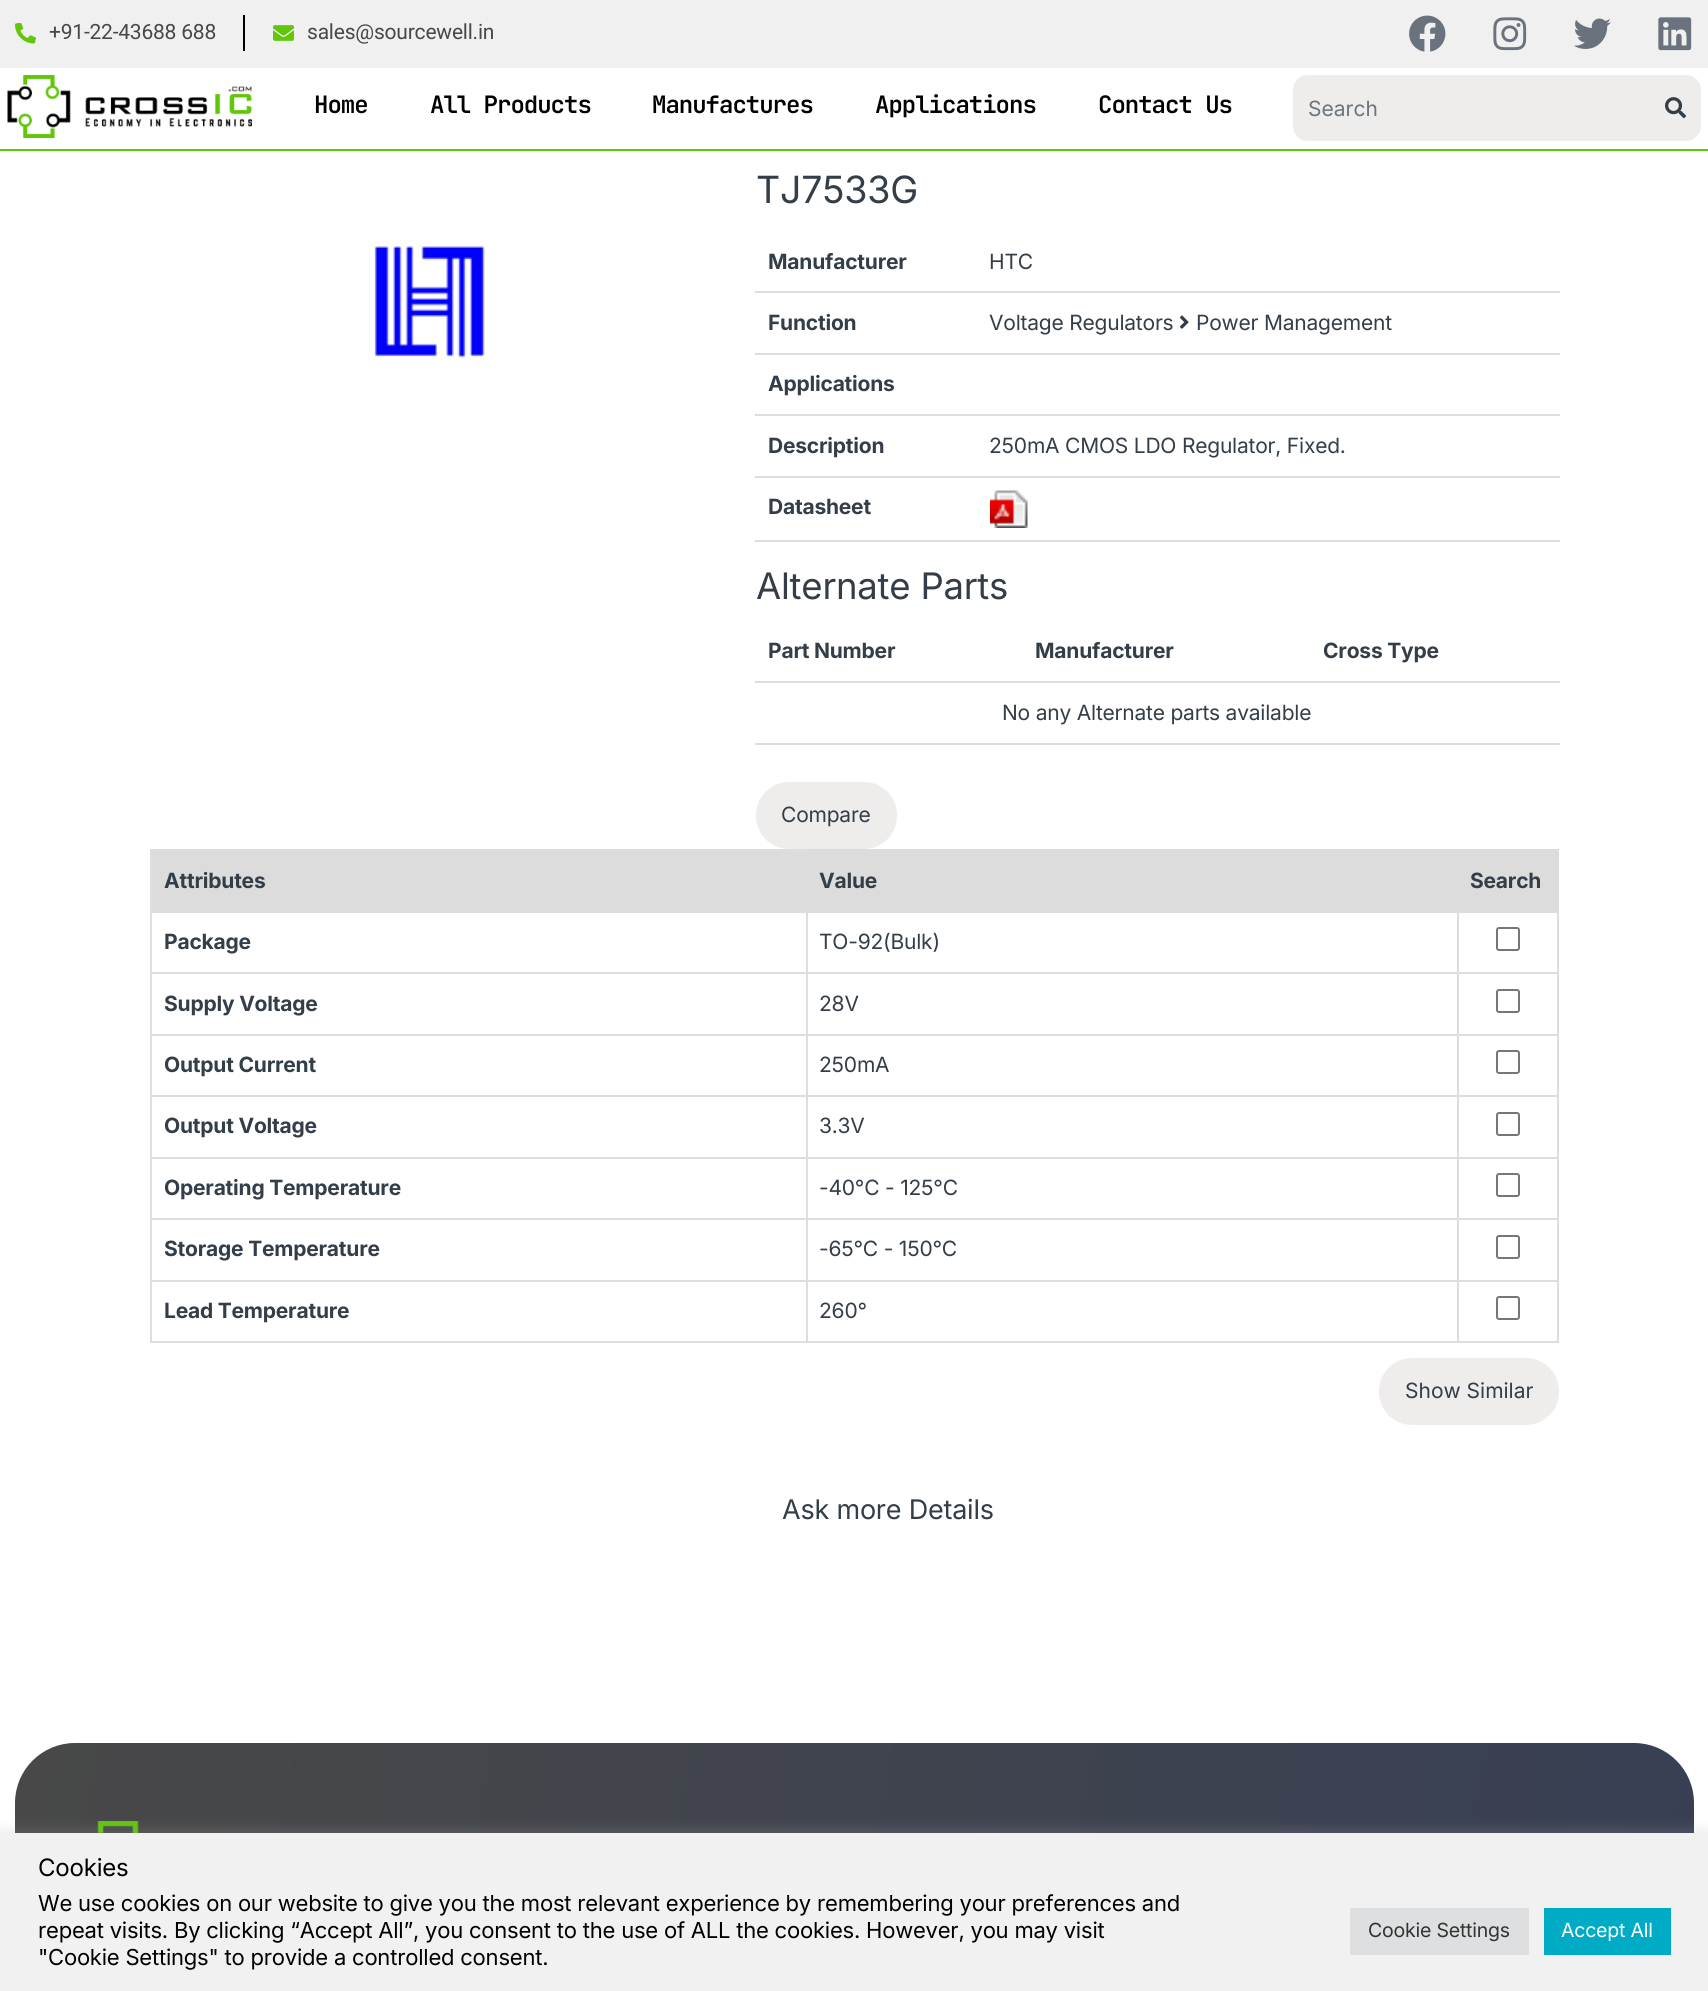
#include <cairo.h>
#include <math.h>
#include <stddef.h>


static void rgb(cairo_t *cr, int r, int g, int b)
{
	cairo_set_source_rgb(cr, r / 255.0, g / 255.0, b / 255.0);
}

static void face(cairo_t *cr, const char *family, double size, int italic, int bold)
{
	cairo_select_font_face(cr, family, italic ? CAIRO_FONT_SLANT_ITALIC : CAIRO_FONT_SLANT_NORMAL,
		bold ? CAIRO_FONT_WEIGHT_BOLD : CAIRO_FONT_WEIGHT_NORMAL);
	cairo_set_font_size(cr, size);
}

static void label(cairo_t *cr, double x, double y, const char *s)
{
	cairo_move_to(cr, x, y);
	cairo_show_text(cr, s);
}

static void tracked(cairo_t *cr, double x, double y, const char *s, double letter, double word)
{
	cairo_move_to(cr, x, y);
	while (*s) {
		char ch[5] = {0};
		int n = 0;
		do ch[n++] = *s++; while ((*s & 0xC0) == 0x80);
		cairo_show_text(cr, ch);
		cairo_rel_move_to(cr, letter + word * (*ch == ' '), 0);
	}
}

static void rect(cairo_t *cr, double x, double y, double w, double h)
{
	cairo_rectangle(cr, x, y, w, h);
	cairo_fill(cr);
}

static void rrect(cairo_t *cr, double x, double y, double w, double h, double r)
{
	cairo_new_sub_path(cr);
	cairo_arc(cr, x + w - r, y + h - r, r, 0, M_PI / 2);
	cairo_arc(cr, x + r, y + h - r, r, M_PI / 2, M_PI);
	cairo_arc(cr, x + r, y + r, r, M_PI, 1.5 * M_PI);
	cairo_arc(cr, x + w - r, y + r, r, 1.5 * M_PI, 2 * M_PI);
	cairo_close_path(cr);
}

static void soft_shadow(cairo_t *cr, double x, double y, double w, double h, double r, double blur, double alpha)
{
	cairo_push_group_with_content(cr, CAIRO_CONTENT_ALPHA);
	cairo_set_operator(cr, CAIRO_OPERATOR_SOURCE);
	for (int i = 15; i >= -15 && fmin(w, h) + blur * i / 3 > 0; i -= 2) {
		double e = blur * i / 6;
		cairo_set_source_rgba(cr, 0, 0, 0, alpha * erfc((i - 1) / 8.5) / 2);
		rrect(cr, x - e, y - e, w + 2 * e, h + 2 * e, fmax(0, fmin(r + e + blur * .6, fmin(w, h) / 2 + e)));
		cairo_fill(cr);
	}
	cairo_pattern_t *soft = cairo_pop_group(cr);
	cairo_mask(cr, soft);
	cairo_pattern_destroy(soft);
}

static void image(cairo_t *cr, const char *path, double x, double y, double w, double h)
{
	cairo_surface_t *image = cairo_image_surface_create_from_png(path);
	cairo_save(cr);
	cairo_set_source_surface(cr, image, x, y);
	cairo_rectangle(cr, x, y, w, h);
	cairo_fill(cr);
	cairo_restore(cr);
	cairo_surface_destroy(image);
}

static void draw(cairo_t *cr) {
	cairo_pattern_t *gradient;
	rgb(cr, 255, 255, 255);
	cairo_paint(cr);
	rgb(cr, 240, 240, 240);
	rect(cr, 0, 0, 1708, 68);
	image(cr, "image0.png", 15, 23, 21, 21);
	face(cr, "Roboto", 21, 0, 0);
	rgb(cr, 72, 72, 72);
	tracked(cr, 49, 39, "+91-22-43688 688", -0.21, 0);
	rgb(cr, 0, 0, 0);
	rect(cr, 243, 15, 2, 36);
	image(cr, "image1.png", 273, 25, 21, 16);
	rgb(cr, 72, 72, 72);
	tracked(cr, 307, 39, "sales@sourcewell.in", -0.21, 0);
	image(cr, "image2.png", 1409, 15, 37, 37);
	image(cr, "image3.png", 1493, 17, 34, 34);
	image(cr, "image4.png", 1574, 18, 37, 31);
	image(cr, "image5.png", 1658, 17, 34, 34);
	rgb(cr, 98, 198, 11);
	rect(cr, 0, 149, 1708, 2);
	image(cr, "image6.png", 7, 75, 245, 63);
	face(cr, "JetBrains Mono SemiBold", 24, 0, 0);
	rgb(cr, 0, 0, 0);
	tracked(cr, 314, 113, "Home", -1, 0);
	tracked(cr, 430, 113, "All Products", -1, 0);
	tracked(cr, 652, 113, "Manufactures", -1, 0);
	tracked(cr, 875, 113, "Applications", -1, 0);
	tracked(cr, 1098, 113, "Contact Us", -1, 0);
	rgb(cr, 239, 236, 236);
	cairo_new_path(cr);
	cairo_move_to(cr, 1308, 75);
	cairo_line_to(cr, 1649, 75);
	cairo_line_to(cr, 1649, 141);
	cairo_line_to(cr, 1308, 141);
	cairo_curve_to(cr, 1299.5, 141, 1293, 134.5, 1293, 126);
	cairo_line_to(cr, 1293, 90);
	cairo_curve_to(cr, 1293, 81.5, 1299.5, 75, 1308, 75);
	cairo_close_path(cr);
	cairo_fill(cr);
	face(cr, "Inter", 21, 0, 0);
	rgb(cr, 108, 117, 125);
	label(cr, 1308, 116, "Search");
	rgb(cr, 239, 236, 236);
	cairo_new_path(cr);
	cairo_move_to(cr, 1649, 75);
	cairo_line_to(cr, 1686, 75);
	cairo_curve_to(cr, 1694.5, 75, 1701, 81.5, 1701, 90);
	cairo_line_to(cr, 1701, 126);
	cairo_curve_to(cr, 1701, 134.5, 1694.5, 141, 1686, 141);
	cairo_line_to(cr, 1649, 141);
	cairo_close_path(cr);
	cairo_fill(cr);
	image(cr, "image7.png", 1665, 97, 21, 22);
	image(cr, "image8.png", 373, 243, 112, 118);
	face(cr, "Inter", 37.5, 0, 0);
	rgb(cr, 51, 62, 72);
	tracked(cr, 756, 203, "TJ7533G", -0.21, 0);
	face(cr, "Inter", 21, 0, 1);
	tracked(cr, 768, 269, "Manufacturer", -0.21, 0);
	rgb(cr, 221, 221, 221);
	rect(cr, 755, 291, 805, 2);
	face(cr, "Inter", 21, 0, 0);
	rgb(cr, 51, 62, 72);
	tracked(cr, 989, 269, "HTC", -0.21, 0);
	face(cr, "Inter", 21, 0, 1);
	tracked(cr, 768, 330, "Function", -0.21, 0);
	rgb(cr, 221, 221, 221);
	rect(cr, 755, 353, 805, 2);
	face(cr, "Inter", 21, 0, 0);
	rgb(cr, 51, 62, 72);
	tracked(cr, 989, 330, "Voltage Regulators", -0.21, 0);
	image(cr, "image9.png", 1180, 315, 9, 14);
	tracked(cr, 1196, 330, "Power Management", -0.21, 0);
	face(cr, "Inter", 21, 0, 1);
	tracked(cr, 768, 391, "Applications", -0.21, 0);
	rgb(cr, 221, 221, 221);
	rect(cr, 755, 414, 805, 2);
	rgb(cr, 51, 62, 72);
	tracked(cr, 768, 453, "Description", -0.21, 0);
	rgb(cr, 221, 221, 221);
	rect(cr, 755, 476, 805, 2);
	face(cr, "Inter", 21, 0, 0);
	rgb(cr, 51, 62, 72);
	tracked(cr, 989, 453, "250mA CMOS LDO Regulator, Fixed.", -0.21, 0);
	rgb(cr, 221, 221, 221);
	rect(cr, 755, 540, 805, 2);
	image(cr, "image10.png", 990, 490, 38, 38);
	face(cr, "Inter", 21, 0, 1);
	rgb(cr, 51, 62, 72);
	tracked(cr, 768, 514, "Datasheet", -0.21, 0);
	face(cr, "Inter", 36.5, 0, 0);
	tracked(cr, 756, 599, "Alternate Parts", -0.21, 0);
	face(cr, "Inter", 21, 0, 1);
	tracked(cr, 768, 658, "Part Number", -0.21, 0);
	tracked(cr, 1035, 658, "Manufacturer", -0.21, 0);
	rgb(cr, 221, 221, 221);
	rect(cr, 755, 681, 805, 2);
	rgb(cr, 51, 62, 72);
	tracked(cr, 1323, 658, "Cross Type", -0.21, 0);
	rgb(cr, 221, 221, 221);
	rect(cr, 755, 743, 805, 2);
	face(cr, "Inter", 21, 0, 0);
	rgb(cr, 51, 62, 72);
	tracked(cr, 1002, 720, "No any Alternate parts available", -0.21, 0);
	rgb(cr, 239, 236, 236);
	rrect(cr, 757, 783, 139, 65, 32);
	cairo_fill_preserve(cr);
	cairo_stroke(cr);
	rgb(cr, 51, 62, 72);
	tracked(cr, 781, 822, "Compare", -0.21, 0);
	rgb(cr, 220, 220, 220);
	rect(cr, 152, 851, 654, 60);
	rect(cr, 806, 849, 753, 62);
	rgb(cr, 221, 221, 221);
	rect(cr, 150, 849, 657, 2);
	rect(cr, 1457, 911, 102, 2);
	rect(cr, 1457, 972, 102, 2);
	rect(cr, 1457, 1034, 102, 2);
	rect(cr, 1457, 1095, 102, 2);
	rect(cr, 1457, 1157, 102, 2);
	rect(cr, 1457, 1218, 102, 2);
	rect(cr, 1457, 1280, 102, 2);
	rect(cr, 1557, 1280, 2, 63);
	rect(cr, 1457, 1341, 102, 2);
	rect(cr, 1457, 1280, 2, 63);
	rect(cr, 806, 1280, 652, 2);
	rect(cr, 1457, 1218, 2, 63);
	rect(cr, 806, 1218, 652, 2);
	rect(cr, 1457, 1157, 2, 63);
	rect(cr, 806, 1157, 652, 2);
	rect(cr, 1457, 1095, 2, 63);
	rect(cr, 806, 1095, 652, 2);
	rect(cr, 1457, 1034, 2, 63);
	rect(cr, 806, 1034, 652, 2);
	rect(cr, 1457, 972, 2, 63);
	rect(cr, 806, 972, 652, 2);
	rect(cr, 1457, 911, 2, 63);
	rect(cr, 806, 911, 652, 2);
	rect(cr, 806, 1341, 652, 2);
	rect(cr, 806, 1280, 2, 63);
	rect(cr, 150, 1280, 657, 2);
	rect(cr, 806, 1218, 2, 63);
	rect(cr, 150, 1218, 657, 2);
	rect(cr, 806, 1157, 2, 63);
	rect(cr, 150, 1157, 657, 2);
	rect(cr, 806, 1095, 2, 63);
	rect(cr, 150, 1095, 657, 2);
	rect(cr, 806, 1034, 2, 63);
	rect(cr, 150, 1034, 657, 2);
	rect(cr, 806, 972, 2, 63);
	rect(cr, 150, 972, 657, 2);
	rect(cr, 806, 911, 2, 63);
	rect(cr, 150, 911, 657, 2);
	rect(cr, 150, 1341, 657, 2);
	rect(cr, 150, 1280, 2, 63);
	rect(cr, 150, 1218, 2, 63);
	rect(cr, 150, 1157, 2, 63);
	rect(cr, 150, 1095, 2, 63);
	rect(cr, 150, 1034, 2, 63);
	rect(cr, 150, 972, 2, 63);
	rect(cr, 150, 911, 2, 63);
	rect(cr, 150, 849, 2, 63);
	face(cr, "Inter", 21, 0, 1);
	rgb(cr, 51, 62, 72);
	tracked(cr, 164, 888, "Attributes", -0.21, 0);
	tracked(cr, 819, 888, "Value", -0.21, 0);
	tracked(cr, 1470, 888, "Search", -0.21, 0);
	tracked(cr, 164, 949, "Package", -0.21, 0);
	face(cr, "Inter", 21, 0, 0);
	tracked(cr, 819, 949, "TO-92(Bulk)", -0.21, 0);
	rgb(cr, 221, 221, 221);
	rect(cr, 1557, 1218, 2, 63);
	rect(cr, 1557, 1157, 2, 63);
	rect(cr, 1557, 1095, 2, 63);
	rect(cr, 1557, 1034, 2, 63);
	rect(cr, 1557, 972, 2, 63);
	rect(cr, 1557, 911, 2, 63);
	rrect(cr, 1497, 928, 22, 22, 2);
	rgb(cr, 118, 118, 118);
	cairo_stroke(cr);
	face(cr, "Inter", 21, 0, 1);
	rgb(cr, 51, 62, 72);
	tracked(cr, 164, 1011, "Supply Voltage", -0.21, 0);
	face(cr, "Inter", 21, 0, 0);
	tracked(cr, 819, 1011, "28V", -0.21, 0);
	rrect(cr, 1497, 990, 22, 22, 2);
	rgb(cr, 118, 118, 118);
	cairo_stroke(cr);
	face(cr, "Inter", 21, 0, 1);
	rgb(cr, 51, 62, 72);
	tracked(cr, 164, 1072, "Output Current", -0.21, 0);
	face(cr, "Inter", 21, 0, 0);
	tracked(cr, 819, 1072, "250mA", -0.21, 0);
	rrect(cr, 1497, 1051, 22, 22, 2);
	rgb(cr, 118, 118, 118);
	cairo_stroke(cr);
	face(cr, "Inter", 21, 0, 1);
	rgb(cr, 51, 62, 72);
	tracked(cr, 164, 1133, "Output Voltage", -0.21, 0);
	face(cr, "Inter", 21, 0, 0);
	tracked(cr, 819, 1133, "3.3V", -0.21, 0);
	rrect(cr, 1497, 1113, 22, 22, 2);
	rgb(cr, 118, 118, 118);
	cairo_stroke(cr);
	face(cr, "Inter", 21, 0, 1);
	rgb(cr, 51, 62, 72);
	tracked(cr, 164, 1195, "Operating Temperature", -0.21, 0);
	face(cr, "Inter", 21, 0, 0);
	tracked(cr, 819, 1195, "-40°C - 125°C", -0.21, 0);
	rrect(cr, 1497, 1174, 22, 22, 2);
	rgb(cr, 118, 118, 118);
	cairo_stroke(cr);
	face(cr, "Inter", 21, 0, 1);
	rgb(cr, 51, 62, 72);
	tracked(cr, 164, 1256, "Storage Temperature", -0.21, 0);
	face(cr, "Inter", 21, 0, 0);
	tracked(cr, 819, 1256, "-65°C - 150°C", -0.21, 0);
	rrect(cr, 1497, 1236, 22, 22, 2);
	rgb(cr, 118, 118, 118);
	cairo_stroke(cr);
	face(cr, "Inter", 21, 0, 1);
	rgb(cr, 51, 62, 72);
	tracked(cr, 164, 1318, "Lead Temperature", -0.21, 0);
	face(cr, "Inter", 21, 0, 0);
	tracked(cr, 819, 1318, "260°", -0.21, 0);
	rrect(cr, 1497, 1297, 22, 22, 2);
	rgb(cr, 118, 118, 118);
	cairo_stroke(cr);
	rgb(cr, 239, 236, 236);
	rrect(cr, 1380, 1359, 178, 65, 32);
	cairo_fill_preserve(cr);
	cairo_stroke(cr);
	rgb(cr, 51, 62, 72);
	label(cr, 1405, 1398, "Show Similar");
	face(cr, "Inter", 27, 0, 0);
	tracked(cr, 782, 1519, "Ask more Details", -0.21, 0);
	gradient = cairo_pattern_create_linear(-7.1, 1869, 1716, 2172);
	cairo_pattern_add_color_stop_rgba(gradient, 0, 0.282, 0.282, 0.282, 1);
	cairo_pattern_add_color_stop_rgba(gradient, 1, 0.216, 0.247, 0.329, 1);
	cairo_set_source(cr, gradient);
	cairo_pattern_destroy(gradient);
	rrect(cr, 15, 1743, 1679, 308, 60);
	cairo_fill(cr);
	image(cr, "image11.png", 97, 1821, 42, 12);
	rgb(cr, 172, 171, 171);
	soft_shadow(cr, 0, 1832, 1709, 159, 0, 7.5, 0.3);
	rgb(cr, 241, 241, 241);
	rect(cr, 0, 1833, 1708, 158);
	face(cr, "Inter", 24, 0, 0);
	rgb(cr, 0, 0, 0);
	tracked(cr, 38, 1876, "Cookies", -0.21, 0);
	face(cr, "Inter", 22, 0, 0);
	tracked(cr, 38, 1911, "We use cookies on our website to give you the most relevant experience by remembering your preferences and", -0.21, 0);
	tracked(cr, 38, 1938, "repeat visits. By clicking “Accept All”, you consent to the use of ALL the cookies. However, you may visit", -0.21, 0);
	tracked(cr, 38, 1965, "\"Cookie Settings\" to provide a controlled consent.", -0.21, 0);
	rgb(cr, 222, 223, 224);
	rect(cr, 1350, 1908, 179, 47);
	face(cr, "Inter", 19.5, 0, 0);
	rgb(cr, 51, 51, 51);
	tracked(cr, 1368, 1937, "Cookie Settings", -0.21, 0);
	rgb(cr, 0, 171, 197);
	rect(cr, 1544, 1908, 127, 47);
	rgb(cr, 255, 255, 255);
	tracked(cr, 1561, 1937, "Accept All", -0.21, 0);
}

int main(void) {
	cairo_surface_t *surface = cairo_image_surface_create(CAIRO_FORMAT_RGB24, 1708, 1991);
	cairo_t *cr = cairo_create(surface);
	cairo_font_options_t *options = cairo_font_options_create();
	cairo_font_options_set_hint_metrics(options, CAIRO_HINT_METRICS_OFF);
	cairo_font_options_set_hint_style(options, CAIRO_HINT_STYLE_NONE);
	cairo_set_font_options(cr, options);
	cairo_set_miter_limit(cr, 4);
	draw(cr);
	cairo_surface_write_to_png(surface, "render.png");
	cairo_font_options_destroy(options);
	cairo_destroy(cr);
	cairo_surface_destroy(surface);
	return 0;
}
